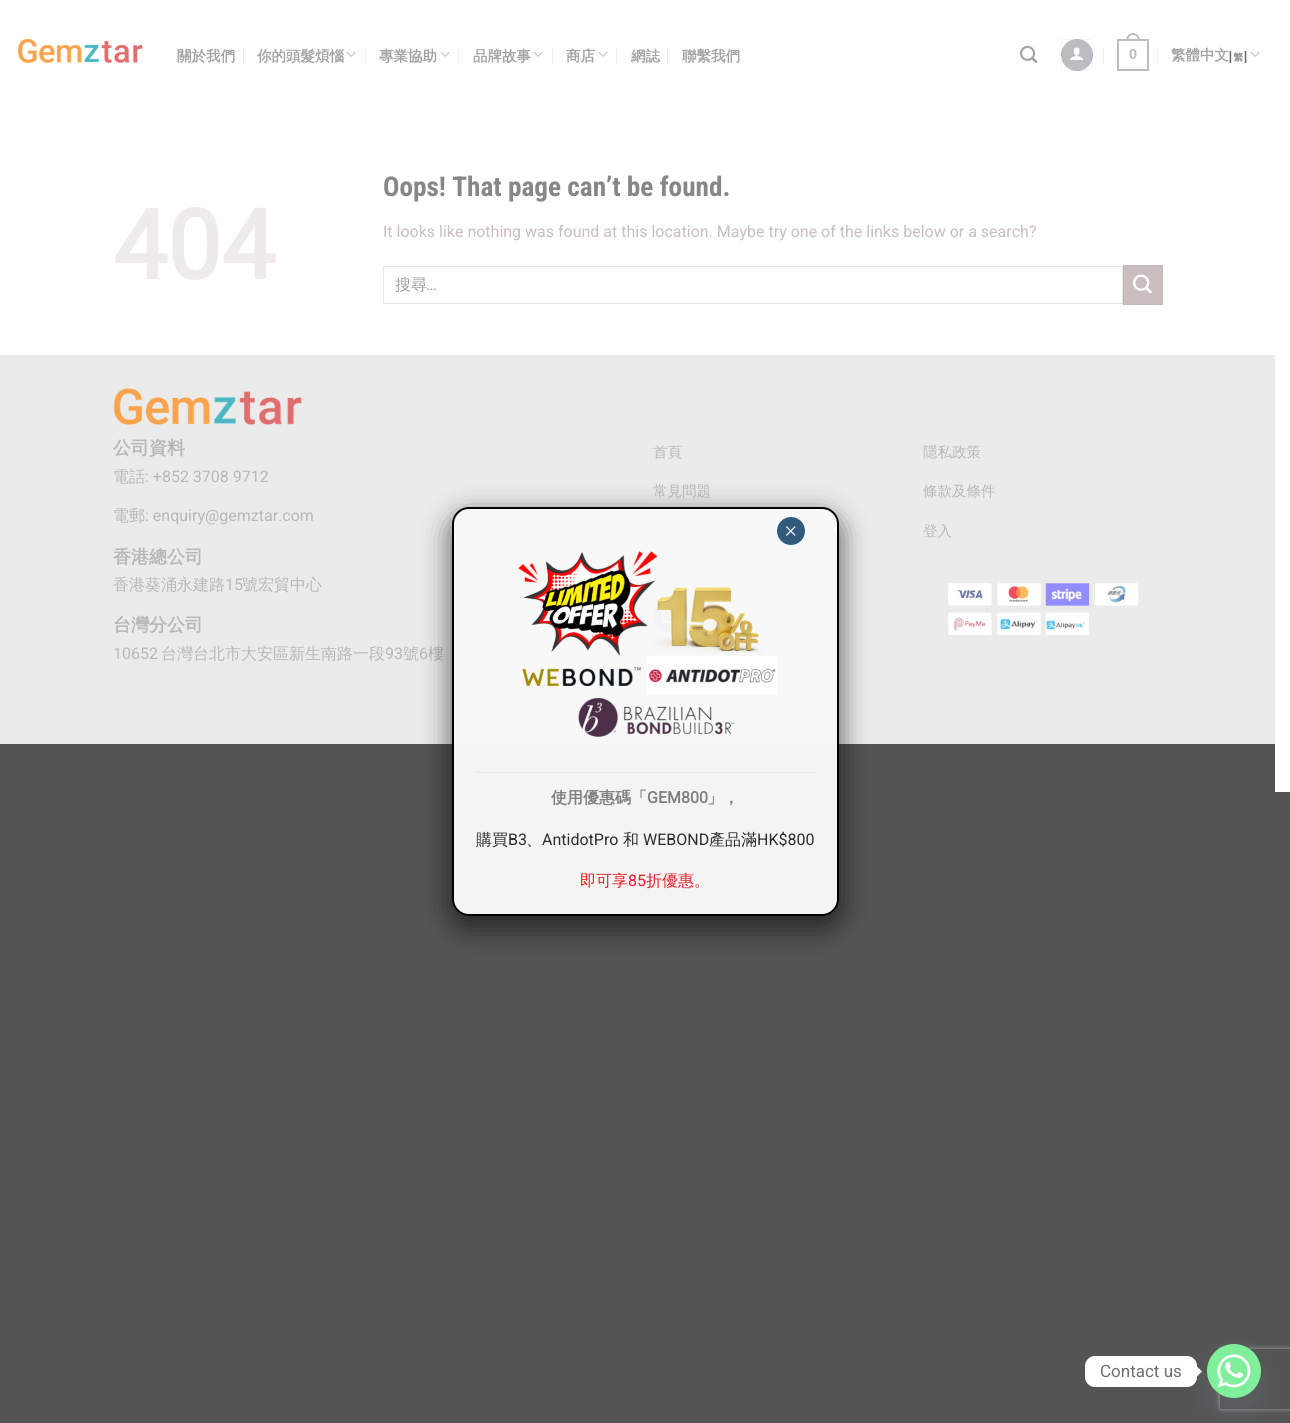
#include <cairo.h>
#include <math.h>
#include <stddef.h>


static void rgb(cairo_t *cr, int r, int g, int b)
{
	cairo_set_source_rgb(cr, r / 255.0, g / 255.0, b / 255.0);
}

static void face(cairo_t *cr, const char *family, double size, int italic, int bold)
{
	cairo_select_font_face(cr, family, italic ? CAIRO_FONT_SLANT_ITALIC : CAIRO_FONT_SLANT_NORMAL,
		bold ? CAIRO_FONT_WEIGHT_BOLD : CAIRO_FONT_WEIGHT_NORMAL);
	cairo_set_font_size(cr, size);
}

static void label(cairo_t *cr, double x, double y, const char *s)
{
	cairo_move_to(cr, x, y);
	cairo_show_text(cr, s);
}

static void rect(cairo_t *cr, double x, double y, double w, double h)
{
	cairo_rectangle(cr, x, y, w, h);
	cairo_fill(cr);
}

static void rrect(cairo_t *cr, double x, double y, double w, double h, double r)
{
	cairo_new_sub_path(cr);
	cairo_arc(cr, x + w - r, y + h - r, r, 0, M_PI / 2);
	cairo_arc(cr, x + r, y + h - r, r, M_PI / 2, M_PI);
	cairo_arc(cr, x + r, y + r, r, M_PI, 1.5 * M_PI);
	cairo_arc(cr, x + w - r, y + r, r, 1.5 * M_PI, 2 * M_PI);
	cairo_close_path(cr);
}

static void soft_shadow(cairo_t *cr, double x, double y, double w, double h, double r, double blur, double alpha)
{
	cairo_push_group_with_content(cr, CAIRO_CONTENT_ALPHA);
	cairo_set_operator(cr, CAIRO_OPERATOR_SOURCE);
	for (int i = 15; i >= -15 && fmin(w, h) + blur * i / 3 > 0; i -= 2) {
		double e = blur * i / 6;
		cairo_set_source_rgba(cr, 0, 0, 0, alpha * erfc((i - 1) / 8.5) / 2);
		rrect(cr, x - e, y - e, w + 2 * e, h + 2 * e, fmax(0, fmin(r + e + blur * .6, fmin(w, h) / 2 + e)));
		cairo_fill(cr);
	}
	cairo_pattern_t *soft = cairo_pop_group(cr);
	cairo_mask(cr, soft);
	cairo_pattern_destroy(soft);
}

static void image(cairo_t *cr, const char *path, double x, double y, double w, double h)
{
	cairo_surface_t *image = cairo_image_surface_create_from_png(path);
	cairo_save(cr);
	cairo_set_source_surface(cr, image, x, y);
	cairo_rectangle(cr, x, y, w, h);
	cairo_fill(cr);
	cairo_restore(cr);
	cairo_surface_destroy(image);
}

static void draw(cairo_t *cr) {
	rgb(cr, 84, 84, 84);
	cairo_paint(cr);
	rgb(cr, 255, 255, 255);
	rect(cr, 0, 0, 1290, 792);
	image(cr, "image0.png", 17, 38, 126, 26);
	face(cr, "WenQuanYi Zen Hei", 14.5, 0, 1);
	rgb(cr, 164, 164, 164);
	label(cr, 177, 61, "關於我們");
	rgb(cr, 238, 238, 238);
	rect(cr, 243, 48, 1, 15);
	rgb(cr, 164, 164, 164);
	label(cr, 257, 61, "你的頭髮煩惱");
	image(cr, "image1.png", 346, 51, 10, 6);
	rgb(cr, 238, 238, 238);
	rect(cr, 365, 48, 1, 15);
	rgb(cr, 164, 164, 164);
	label(cr, 379, 61, "專業協助");
	image(cr, "image1.png", 440, 51, 10, 6);
	rgb(cr, 238, 238, 238);
	rect(cr, 458, 48, 1, 15);
	rgb(cr, 164, 164, 164);
	label(cr, 473, 61, "品牌故事");
	image(cr, "image1.png", 533, 51, 10, 6);
	rgb(cr, 238, 238, 238);
	rect(cr, 552, 48, 1, 15);
	rgb(cr, 164, 164, 164);
	label(cr, 566, 61, "商店");
	image(cr, "image1.png", 598, 51, 10, 6);
	rgb(cr, 238, 238, 238);
	rect(cr, 616, 48, 1, 15);
	rgb(cr, 164, 164, 164);
	label(cr, 631, 61, "網誌");
	rgb(cr, 238, 238, 238);
	rect(cr, 667, 48, 1, 15);
	rgb(cr, 164, 164, 164);
	label(cr, 682, 61, "聯繫我們");
	image(cr, "image2.png", 1020, 45, 18, 18);
	rgb(cr, 188, 188, 193);
	cairo_arc(cr, 1077, 55, 16, 0, 2 * M_PI);
	cairo_fill(cr);
	cairo_rectangle(cr, 1061.5, 39.5, 31, 31);
	cairo_set_source_rgba(cr, 0.302, 0.302, 0.302, 0.05);
	cairo_set_line_width(cr, 1);
	cairo_stroke(cr);
	image(cr, "image3.png", 1070, 47, 14, 13);
	rgb(cr, 238, 238, 238);
	rect(cr, 1103, 48, 1, 15);
	cairo_rectangle(cr, 1118, 40, 30, 30);
	rgb(cr, 188, 188, 193);
	cairo_set_line_width(cr, 2);
	cairo_stroke(cr);
	cairo_set_fill_rule(cr, CAIRO_FILL_RULE_EVEN_ODD);
	cairo_new_path(cr);
	cairo_move_to(cr, 1133, 33);
	cairo_curve_to(cr, 1137.5, 33, 1140, 37, 1140, 41);
	cairo_line_to(cr, 1126, 41);
	cairo_curve_to(cr, 1126, 37, 1128.5, 33, 1133, 33);
	cairo_close_path(cr);
	cairo_move_to(cr, 1133, 35);
	cairo_curve_to(cr, 1136.5, 35, 1138, 38, 1138, 41);
	cairo_line_to(cr, 1128, 41);
	cairo_curve_to(cr, 1128, 38, 1129.5, 35, 1133, 35);
	cairo_close_path(cr);
	cairo_fill(cr);
	face(cr, "Liberation Sans", 14.5, 0, 1);
	label(cr, 1129, 59, "0");
	rgb(cr, 238, 238, 238);
	rect(cr, 1157, 48, 1, 15);
	face(cr, "WenQuanYi Zen Hei", 14.5, 0, 1);
	rgb(cr, 164, 164, 164);
	label(cr, 1171, 60, "繁體中文");
	image(cr, "image4.png", 1229, 51, 18, 12);
	image(cr, "image1.png", 1250, 51, 10, 6);
	face(cr, "Roboto", 96, 0, 1);
	rgb(cr, 239, 235, 235);
	label(cr, 113, 279, "404");
	face(cr, "Roboto Condensed", 27.25, 0, 1);
	rgb(cr, 135, 135, 135);
	label(cr, 383, 196, "Oops! That page can’t be found.");
	face(cr, "Roboto", 16, 0, 0);
	rgb(cr, 202, 190, 190);
	label(cr, 383, 237, "It looks like nothing was found at this location. Maybe try one of the links below or a search?");
	cairo_rectangle(cr, 383.5, 266.5, 739, 37);
	rgb(cr, 231, 231, 231);
	cairo_set_line_width(cr, 1);
	cairo_stroke(cr);
	face(cr, "WenQuanYi Zen Hei Medium", 16, 0, 0);
	rgb(cr, 158, 158, 158);
	label(cr, 395, 290, "搜尋");
	face(cr, "Roboto", 16, 0, 0);
	label(cr, 426, 290, "…");
	rgb(cr, 202, 190, 190);
	cairo_rectangle(cr, 1123.5, 265.5, 39, 39);
	cairo_fill_preserve(cr);
	rgb(cr, 196, 184, 184);
	cairo_stroke(cr);
	image(cr, "image5.png", 1133, 274, 19, 20);
	rgb(cr, 235, 235, 235);
	rect(cr, 0, 355, 1275, 389);
	image(cr, "image6.png", 113, 388, 189, 37);
	face(cr, "WenQuanYi Zen Hei", 18, 0, 1);
	rgb(cr, 184, 184, 184);
	label(cr, 113, 454, "公司資料");
	face(cr, "WenQuanYi Zen Hei Medium", 16, 0, 0);
	label(cr, 113, 482, "電話");
	face(cr, "Roboto", 16, 0, 0);
	label(cr, 145, 482, ": +852 3708 9712");
	face(cr, "WenQuanYi Zen Hei Medium", 16, 0, 0);
	label(cr, 113, 521, "電郵");
	face(cr, "Roboto", 16, 0, 0);
	label(cr, 145, 521, ": enquiry@gemztar.com");
	face(cr, "WenQuanYi Zen Hei", 18, 0, 1);
	label(cr, 113, 563, "香港總公司");
	face(cr, "WenQuanYi Zen Hei Medium", 16, 0, 0);
	label(cr, 113, 590, "香港葵涌永建路");
	face(cr, "Roboto", 16, 0, 0);
	label(cr, 225, 590, "15");
	face(cr, "WenQuanYi Zen Hei Medium", 16, 0, 0);
	label(cr, 242, 590, "號宏貿中心");
	face(cr, "WenQuanYi Zen Hei", 18, 0, 1);
	label(cr, 113, 631, "台灣分公司");
	face(cr, "Roboto", 16, 0, 0);
	label(cr, 113, 659, "10652");
	face(cr, "WenQuanYi Zen Hei Medium", 16, 0, 0);
	label(cr, 161, 659, "台灣台北市大安區新生南路一段");
	face(cr, "Roboto", 16, 0, 0);
	label(cr, 385, 659, "93");
	face(cr, "WenQuanYi Zen Hei Medium", 16, 0, 0);
	label(cr, 403, 659, "號");
	face(cr, "Roboto", 16, 0, 0);
	label(cr, 419, 659, "6");
	face(cr, "WenQuanYi Zen Hei Medium", 16, 0, 0);
	label(cr, 428, 659, "樓");
	face(cr, "WenQuanYi Zen Hei Medium", 14.5, 0, 0);
	label(cr, 653, 457, "首頁");
	label(cr, 653, 496, "常見問題");
	rgb(cr, 88, 88, 88);
	rrect(cr, 654.5, 600.5, 32, 33, 16);
	cairo_fill_preserve(cr);
	cairo_stroke(cr);
	image(cr, "image7.png", 662, 610, 10, 13);
	rgb(cr, 213, 112, 101);
	rrect(cr, 690.5, 600.5, 32, 33, 16);
	cairo_fill_preserve(cr);
	cairo_stroke(cr);
	image(cr, "image8.png", 699, 618, 16, 4);
	rgb(cr, 184, 184, 184);
	label(cr, 923, 457, "隱私政策");
	label(cr, 923, 496, "條款及條件");
	label(cr, 923, 536, "登入");
	image(cr, "image9.png", 948, 583, 191, 52);
	rgb(cr, 84, 84, 84);
	rect(cr, 0, 744, 1275, 48);
	cairo_save(cr);
	cairo_new_path(cr);
	cairo_move_to(cr, 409, 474);
	cairo_line_to(cr, 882, 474);
	cairo_line_to(cr, 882, 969);
	cairo_line_to(cr, 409, 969);
	cairo_close_path(cr);
	cairo_move_to(cr, 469, 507);
	cairo_line_to(cr, 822, 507);
	cairo_curve_to(cr, 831.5, 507, 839, 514.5, 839, 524);
	cairo_line_to(cr, 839, 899);
	cairo_curve_to(cr, 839, 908.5, 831.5, 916, 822, 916);
	cairo_line_to(cr, 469, 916);
	cairo_curve_to(cr, 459.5, 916, 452, 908.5, 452, 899);
	cairo_line_to(cr, 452, 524);
	cairo_curve_to(cr, 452, 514.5, 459.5, 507, 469, 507);
	cairo_close_path(cr);
	cairo_clip(cr);
	rgb(cr, 2, 2, 2);
	soft_shadow(cr, 448, 513, 395, 417, 21, 12.5, 0.53);
	cairo_restore(cr);
	cairo_set_source_rgba(cr, 0.976, 0.976, 0.976, 0.97);
	rrect(cr, 453, 508, 385, 407, 16);
	cairo_fill_preserve(cr);
	rgb(cr, 0, 0, 0);
	cairo_set_line_width(cr, 2);
	cairo_stroke(cr);
	rgb(cr, 49, 91, 124);
	cairo_arc(cr, 791, 531, 14, 0, 2 * M_PI);
	cairo_fill(cr);
	face(cr, "Liberation Serif", 24, 0, 0);
	rgb(cr, 255, 255, 255);
	label(cr, 784, 539, "×");
	image(cr, "image10.png", 518, 551, 259, 186);
	cairo_set_source_rgba(cr, 0.502, 0.502, 0.502, 0.1);
	rect(cr, 476, 772, 339, 1);
	face(cr, "WenQuanYi Zen Hei", 16, 0, 1);
	rgb(cr, 128, 128, 128);
	label(cr, 551, 803, "使用優惠碼「");
	face(cr, "Roboto", 16, 0, 1);
	label(cr, 647, 803, "GEM800");
	face(cr, "WenQuanYi Zen Hei", 16, 0, 1);
	label(cr, 707, 803, "」，");
	face(cr, "WenQuanYi Zen Hei Medium", 16, 0, 0);
	rgb(cr, 45, 45, 45);
	label(cr, 476, 845, "購買");
	face(cr, "Roboto", 16, 0, 0);
	label(cr, 508, 845, "B3");
	face(cr, "WenQuanYi Zen Hei Medium", 16, 0, 0);
	label(cr, 526, 845, "、");
	face(cr, "Roboto", 16, 0, 0);
	label(cr, 542, 845, "AntidotPro");
	face(cr, "WenQuanYi Zen Hei Medium", 16, 0, 0);
	label(cr, 623, 845, "和");
	face(cr, "Roboto", 16, 0, 0);
	label(cr, 643, 845, "WEBOND");
	face(cr, "WenQuanYi Zen Hei Medium", 16, 0, 0);
	label(cr, 709, 845, "產品滿");
	face(cr, "Roboto", 16, 0, 0);
	label(cr, 757, 845, "HK$800");
	face(cr, "WenQuanYi Zen Hei Medium", 16, 0, 0);
	rgb(cr, 237, 28, 36);
	label(cr, 580, 886, "即可享");
	face(cr, "Roboto", 16, 0, 0);
	label(cr, 628, 886, "85");
	face(cr, "WenQuanYi Zen Hei Medium", 16, 0, 0);
	label(cr, 646, 886, "折優惠。");
	rgb(cr, 128, 149, 165);
	soft_shadow(cr, 1207, 1360, 54, 54, 27, 12, 0.16);
	rgb(cr, 255, 255, 255);
	rrect(cr, 1085, 1356, 112, 31, 10);
	cairo_fill(cr);
	face(cr, "Roboto", 17, 0, 0);
	rgb(cr, 112, 112, 112);
	label(cr, 1100, 1377, "Contact us");
	rgb(cr, 255, 255, 255);
	cairo_set_fill_rule(cr, CAIRO_FILL_RULE_WINDING);
	cairo_new_path(cr);
	cairo_move_to(cr, 1197, 1376.5);
	cairo_line_to(cr, 1197, 1366.5);
	cairo_line_to(cr, 1202, 1371.5);
	cairo_close_path(cr);
	cairo_fill(cr);
	cairo_save(cr);
	cairo_set_fill_rule(cr, CAIRO_FILL_RULE_EVEN_ODD);
	cairo_new_path(cr);
	cairo_move_to(cr, 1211, 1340);
	cairo_line_to(cr, 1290, 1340);
	cairo_line_to(cr, 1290, 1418);
	cairo_line_to(cr, 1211, 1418);
	cairo_close_path(cr);
	cairo_move_to(cr, 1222, 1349);
	cairo_line_to(cr, 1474, 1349);
	cairo_curve_to(cr, 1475, 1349, 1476, 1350, 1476, 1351);
	cairo_line_to(cr, 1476, 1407);
	cairo_curve_to(cr, 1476, 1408, 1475, 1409, 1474, 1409);
	cairo_line_to(cr, 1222, 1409);
	cairo_curve_to(cr, 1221, 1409, 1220, 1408, 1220, 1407);
	cairo_line_to(cr, 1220, 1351);
	cairo_curve_to(cr, 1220, 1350, 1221, 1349, 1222, 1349);
	cairo_close_path(cr);
	cairo_clip(cr);
	rgb(cr, 166, 166, 166);
	soft_shadow(cr, 1220, 1349, 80, 60, 2, 2.5, 1);
	cairo_restore(cr);
	image(cr, "image11.png", 1207, 1344, 54, 54);
}

int main(void) {
	cairo_surface_t *surface = cairo_image_surface_create(CAIRO_FORMAT_RGB24, 1290, 1423);
	cairo_t *cr = cairo_create(surface);
	cairo_font_options_t *options = cairo_font_options_create();
	cairo_font_options_set_hint_metrics(options, CAIRO_HINT_METRICS_OFF);
	cairo_font_options_set_hint_style(options, CAIRO_HINT_STYLE_NONE);
	cairo_set_font_options(cr, options);
	cairo_set_miter_limit(cr, 4);
	draw(cr);
	cairo_surface_write_to_png(surface, "render.png");
	cairo_font_options_destroy(options);
	cairo_destroy(cr);
	cairo_surface_destroy(surface);
	return 0;
}
